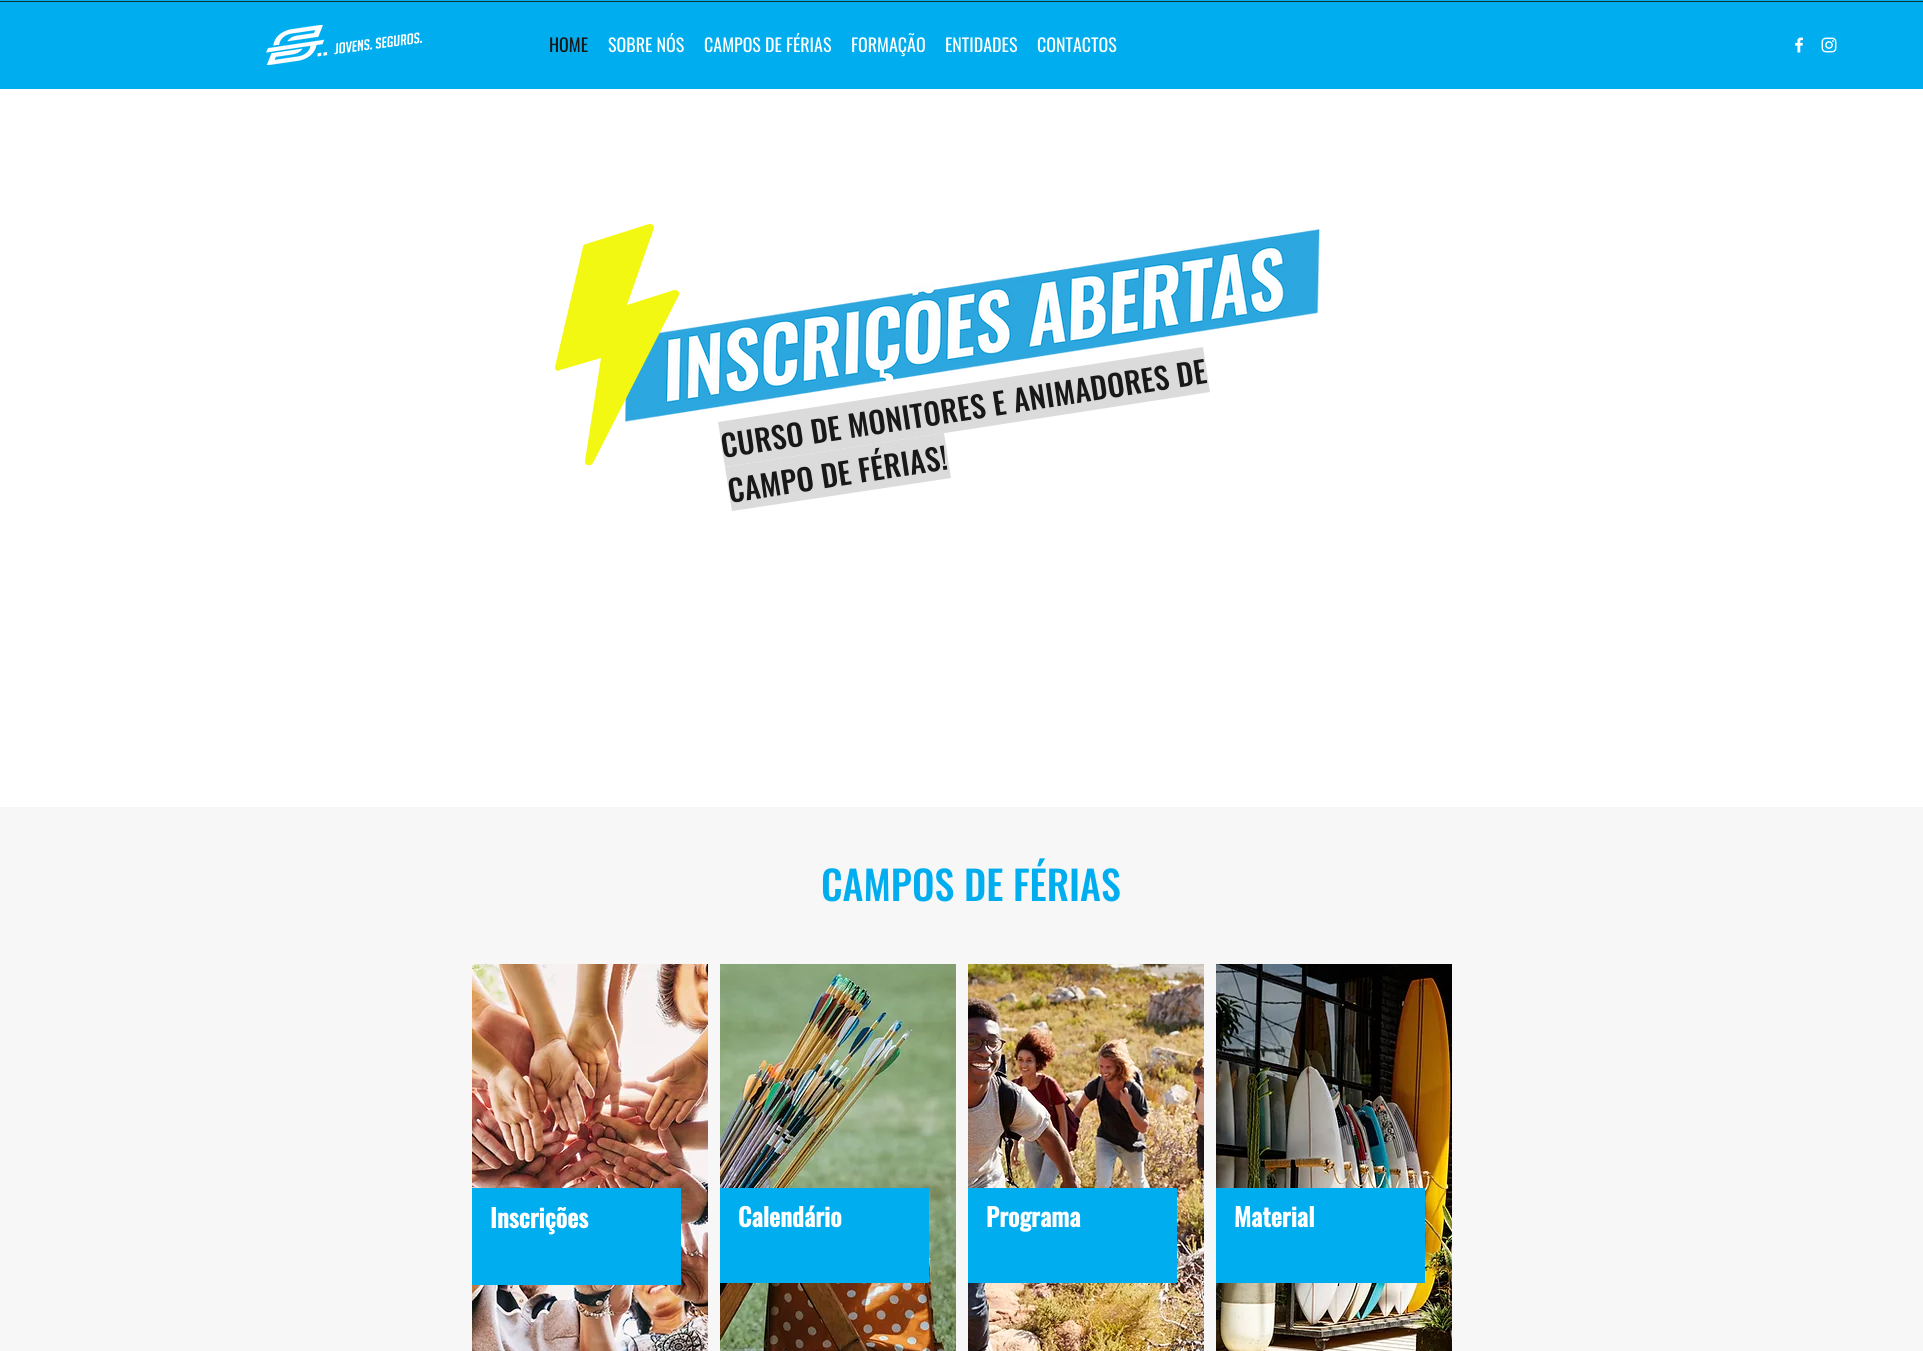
#include <cairo.h>
#include <math.h>
#include <stddef.h>


static void rgb(cairo_t *cr, int r, int g, int b)
{
	cairo_set_source_rgb(cr, r / 255.0, g / 255.0, b / 255.0);
}

static void face(cairo_t *cr, const char *family, double size, int italic, int bold)
{
	cairo_select_font_face(cr, family, italic ? CAIRO_FONT_SLANT_ITALIC : CAIRO_FONT_SLANT_NORMAL,
		bold ? CAIRO_FONT_WEIGHT_BOLD : CAIRO_FONT_WEIGHT_NORMAL);
	cairo_set_font_size(cr, size);
}

static void label(cairo_t *cr, double x, double y, const char *s)
{
	cairo_move_to(cr, x, y);
	cairo_show_text(cr, s);
}

static void tracked(cairo_t *cr, double x, double y, const char *s, double letter, double word)
{
	cairo_move_to(cr, x, y);
	while (*s) {
		char ch[5] = {0};
		int n = 0;
		do ch[n++] = *s++; while ((*s & 0xC0) == 0x80);
		cairo_show_text(cr, ch);
		cairo_rel_move_to(cr, letter + word * (*ch == ' '), 0);
	}
}

static void rect(cairo_t *cr, double x, double y, double w, double h)
{
	cairo_rectangle(cr, x, y, w, h);
	cairo_fill(cr);
}

static void image(cairo_t *cr, const char *path, double x, double y, double w, double h)
{
	cairo_surface_t *image = cairo_image_surface_create_from_png(path);
	cairo_save(cr);
	cairo_set_source_surface(cr, image, x, y);
	cairo_rectangle(cr, x, y, w, h);
	cairo_fill(cr);
	cairo_restore(cr);
	cairo_surface_destroy(image);
}

static void draw(cairo_t *cr) {
	rgb(cr, 255, 255, 255);
	cairo_paint(cr);
	rgb(cr, 0, 174, 240);
	rect(cr, 0, 0, 1923, 89);
	rgb(cr, 20, 47, 56);
	rect(cr, 0, 1, 1923, 1);
	image(cr, "image0.png", 266, 25, 156, 40);
	face(cr, "Oswald", 18, 0, 0);
	rgb(cr, 24, 24, 24);
	label(cr, 549, 52, "HOME");
	rgb(cr, 255, 255, 255);
	label(cr, 608, 52, "SOBRE NÓS");
	label(cr, 704, 52, "CAMPOS DE FÉRIAS");
	label(cr, 851, 52, "FORMAÇÃO");
	label(cr, 945, 52, "ENTIDADES");
	label(cr, 1037, 52, "CONTACTOS");
	image(cr, "image1.png", 1795, 37, 9, 16);
	image(cr, "image2.png", 1821, 37, 16, 16);
	rgb(cr, 219, 219, 219);
	cairo_new_path(cr);
	cairo_move_to(cr, 718, 422);
	cairo_line_to(cr, 1203, 347);
	cairo_line_to(cr, 1210, 392);
	cairo_line_to(cr, 725, 467);
	cairo_close_path(cr);
	cairo_fill(cr);
	cairo_new_path(cr);
	cairo_move_to(cr, 725, 467);
	cairo_line_to(cr, 944, 433);
	cairo_line_to(cr, 951, 478);
	cairo_line_to(cr, 732, 511);
	cairo_close_path(cr);
	cairo_fill(cr);
	face(cr, "Oswald Medium", 30, 0, 0);
	rgb(cr, 24, 24, 24);
	cairo_save(cr);
	cairo_translate(cr, 723, 458);
	cairo_rotate(cr, -8.8 * M_PI / 180);
	tracked(cr, 0, 0, "CURSO DE MONITORES E ANIMADORES DE", 0.3, 0);
	cairo_restore(cr);
	image(cr, "image3.png", 625, 227, 695, 195);
	rgb(cr, 243, 248, 18);
	cairo_new_path(cr);
	cairo_move_to(cr, 590, 465);
	cairo_curve_to(cr, 588, 466, 584, 464, 585, 461);
	cairo_line_to(cr, 601, 358);
	cairo_line_to(cr, 560, 370);
	cairo_curve_to(cr, 559, 371, 557, 371, 556, 370);
	cairo_curve_to(cr, 555, 369, 555, 368, 555, 367);
	cairo_line_to(cr, 583, 247);
	cairo_curve_to(cr, 583, 246, 584, 244, 586, 244);
	cairo_line_to(cr, 649, 224);
	cairo_curve_to(cr, 651, 224, 652, 224, 653, 225);
	cairo_curve_to(cr, 654, 226, 654, 227, 654, 228);
	cairo_line_to(cr, 627, 305);
	cairo_line_to(cr, 674, 290);
	cairo_curve_to(cr, 676, 290, 677, 290, 678, 291);
	cairo_curve_to(cr, 679, 292, 680, 294, 679, 295);
	cairo_line_to(cr, 593, 463);
	cairo_curve_to(cr, 592, 464, 591, 465, 590, 465);
	cairo_fill(cr);
	rgb(cr, 24, 24, 24);
	cairo_save(cr);
	cairo_translate(cr, 730, 503);
	cairo_rotate(cr, -8.8 * M_PI / 180);
	tracked(cr, 0, 0, "CAMPO DE FÉRIAS!", 0.3, 0);
	cairo_restore(cr);
	rgb(cr, 247, 247, 247);
	rect(cr, 0, 807, 1923, 544);
	face(cr, "Oswald Medium", 40, 0, 0);
	rgb(cr, 0, 174, 240);
	label(cr, 821, 901, "CAMPOS DE FÉRIAS");
	image(cr, "image4.png", 472, 964, 236, 387);
	rect(cr, 472, 1188, 209, 97);
	face(cr, "Oswald", 25, 0, 1);
	rgb(cr, 255, 255, 255);
	label(cr, 490, 1228, "Inscrições");
	image(cr, "image5.png", 720, 964, 236, 387);
	rgb(cr, 0, 174, 240);
	rect(cr, 720, 1188, 209, 95);
	rgb(cr, 255, 255, 255);
	label(cr, 738, 1227, "Calendário");
	image(cr, "image6.png", 968, 964, 236, 387);
	rgb(cr, 0, 174, 240);
	rect(cr, 968, 1188, 209, 95);
	rgb(cr, 255, 255, 255);
	label(cr, 986, 1227, "Programa");
	image(cr, "image7.png", 1216, 964, 236, 387);
	rgb(cr, 0, 174, 240);
	rect(cr, 1216, 1188, 209, 95);
	rgb(cr, 255, 255, 255);
	label(cr, 1234, 1227, "Material");
}

int main(void) {
	cairo_surface_t *surface = cairo_image_surface_create(CAIRO_FORMAT_RGB24, 1923, 1351);
	cairo_t *cr = cairo_create(surface);
	cairo_font_options_t *options = cairo_font_options_create();
	cairo_font_options_set_hint_metrics(options, CAIRO_HINT_METRICS_OFF);
	cairo_font_options_set_hint_style(options, CAIRO_HINT_STYLE_NONE);
	cairo_set_font_options(cr, options);
	cairo_set_miter_limit(cr, 4);
	draw(cr);
	cairo_surface_write_to_png(surface, "render.png");
	cairo_font_options_destroy(options);
	cairo_destroy(cr);
	cairo_surface_destroy(surface);
	return 0;
}
